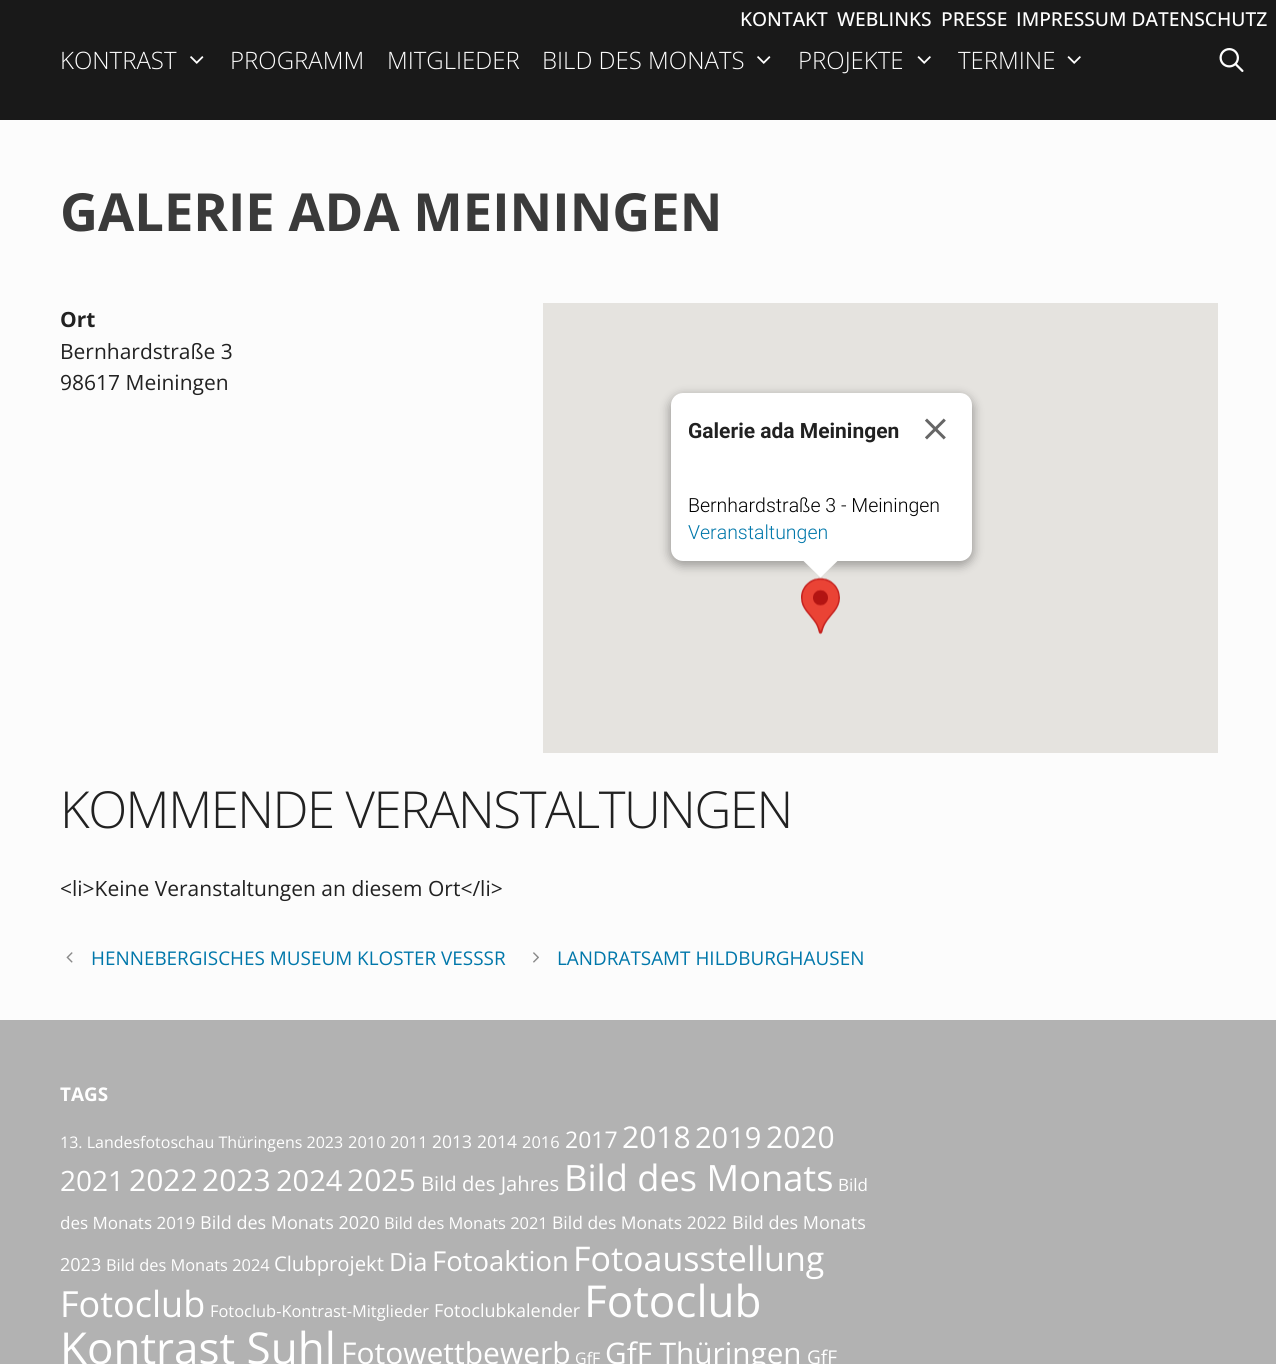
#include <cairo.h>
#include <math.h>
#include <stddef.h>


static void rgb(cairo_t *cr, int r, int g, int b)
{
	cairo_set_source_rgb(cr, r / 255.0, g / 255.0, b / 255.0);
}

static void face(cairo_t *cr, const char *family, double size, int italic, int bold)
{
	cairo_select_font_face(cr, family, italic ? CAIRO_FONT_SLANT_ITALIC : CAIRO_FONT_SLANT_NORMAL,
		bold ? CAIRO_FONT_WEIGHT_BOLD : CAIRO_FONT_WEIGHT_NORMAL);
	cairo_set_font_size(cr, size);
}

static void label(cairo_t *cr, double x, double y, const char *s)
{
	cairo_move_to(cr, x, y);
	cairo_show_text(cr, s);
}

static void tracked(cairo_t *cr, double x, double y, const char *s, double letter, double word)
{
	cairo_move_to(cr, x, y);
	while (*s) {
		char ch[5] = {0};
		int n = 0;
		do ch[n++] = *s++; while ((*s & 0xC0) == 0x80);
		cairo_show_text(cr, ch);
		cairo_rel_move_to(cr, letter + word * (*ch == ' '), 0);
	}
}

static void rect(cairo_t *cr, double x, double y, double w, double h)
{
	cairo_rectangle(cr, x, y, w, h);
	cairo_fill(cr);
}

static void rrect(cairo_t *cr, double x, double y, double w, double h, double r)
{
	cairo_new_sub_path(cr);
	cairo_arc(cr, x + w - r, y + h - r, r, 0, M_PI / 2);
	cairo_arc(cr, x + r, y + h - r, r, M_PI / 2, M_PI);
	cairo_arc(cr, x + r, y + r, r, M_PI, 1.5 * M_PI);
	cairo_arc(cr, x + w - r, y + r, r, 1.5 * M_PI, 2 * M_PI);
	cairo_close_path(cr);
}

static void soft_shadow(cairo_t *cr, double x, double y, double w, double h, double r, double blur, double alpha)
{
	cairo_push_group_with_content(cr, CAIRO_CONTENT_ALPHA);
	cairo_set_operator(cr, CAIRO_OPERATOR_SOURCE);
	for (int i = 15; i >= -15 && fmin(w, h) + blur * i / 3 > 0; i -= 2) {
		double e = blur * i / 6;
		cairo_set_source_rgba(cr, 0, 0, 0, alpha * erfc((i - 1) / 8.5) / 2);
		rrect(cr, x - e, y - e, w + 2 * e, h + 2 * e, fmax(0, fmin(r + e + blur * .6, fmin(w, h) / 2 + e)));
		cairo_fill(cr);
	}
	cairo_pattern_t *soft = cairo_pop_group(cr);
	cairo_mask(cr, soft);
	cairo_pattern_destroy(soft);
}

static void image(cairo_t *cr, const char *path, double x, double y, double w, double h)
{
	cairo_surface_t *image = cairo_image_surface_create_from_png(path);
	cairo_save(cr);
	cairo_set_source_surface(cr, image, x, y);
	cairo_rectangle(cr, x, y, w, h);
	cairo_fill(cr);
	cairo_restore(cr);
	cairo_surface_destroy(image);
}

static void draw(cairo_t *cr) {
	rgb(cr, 252, 252, 252);
	cairo_paint(cr);
	rgb(cr, 25, 25, 25);
	rect(cr, 0, 0, 1276, 120);
	face(cr, "Open Sans Medium", 19.25, 0, 0);
	rgb(cr, 255, 255, 255);
	label(cr, 740, 26, "KONTAKT");
	label(cr, 837, 26, "WEBLINKS");
	label(cr, 941, 26, "PRESSE");
	label(cr, 1016, 26, "IMPRESSUM DATENSCHUTZ");
	face(cr, "Open Sans Light", 24, 0, 0);
	label(cr, 60, 69, "KONTRAST");
	image(cr, "image0.png", 190, 56, 14, 8);
	label(cr, 230, 69, "PROGRAMM");
	label(cr, 387, 69, "MITGLIEDER");
	label(cr, 542, 69, "BILD DES MONATS");
	image(cr, "image0.png", 757, 56, 14, 8);
	label(cr, 798, 69, "PROJEKTE");
	image(cr, "image1.png", 917, 56, 14, 8);
	label(cr, 958, 69, "TERMINE");
	image(cr, "image1.png", 1067, 56, 14, 8);
	image(cr, "image2.png", 1219, 48, 25, 24);
	face(cr, "Open Sans", 52.5, 0, 1);
	rgb(cr, 58, 58, 58);
	label(cr, 60, 231, "GALERIE ADA MEININGEN");
	face(cr, "Open Sans", 21, 0, 1);
	rgb(cr, 33, 33, 33);
	label(cr, 60, 327, "Ort");
	face(cr, "Open Sans", 21, 0, 0);
	label(cr, 60, 359, "Bernhardstraße 3");
	label(cr, 60, 390, "98617 Meiningen");
	rgb(cr, 229, 227, 223);
	rect(cr, 543, 303, 675, 450);
	image(cr, "image4.png", 801, 577, 39, 58);
	rgb(cr, 0, 0, 0);
	soft_shadow(cr, 669, 395, 305, 171, 14, 5, 0.3);
	rgb(cr, 255, 255, 255);
	rrect(cr, 671, 393, 301, 168, 12);
	cairo_fill(cr);
	cairo_save(cr);
	cairo_rectangle(cr, 689, 393, 211, 72);
	cairo_clip(cr);
	face(cr, "Roboto", 21, 0, 1);
	rgb(cr, 33, 33, 33);
	label(cr, 688, 438, "Galerie ada Meiningen");
	cairo_restore(cr);
	image(cr, "image3.png", 925, 418, 21, 22);
	face(cr, "Roboto Light", 19.5, 0, 0);
	rgb(cr, 0, 0, 0);
	label(cr, 688, 512, "Bernhardstraße 3 - Meiningen");
	rgb(cr, 0, 119, 170);
	label(cr, 688, 539, "Veranstaltungen");
	rgb(cr, 255, 255, 255);
	cairo_new_path(cr);
	cairo_move_to(cr, 803, 560);
	cairo_line_to(cr, 803, 560.5);
	cairo_line_to(cr, 820.5, 577.5);
	cairo_line_to(cr, 838.5, 560);
	cairo_close_path(cr);
	cairo_fill(cr);
	face(cr, "Open Sans Light", 51, 0, 0);
	rgb(cr, 33, 33, 33);
	tracked(cr, 60, 828, "KOMMENDE VERANSTALTUNGEN", -1.5, 0);
	face(cr, "Open Sans", 21, 0, 0);
	label(cr, 60, 896, "<li>Keine Veranstaltungen an diesem Ort</li>");
	image(cr, "image5.png", 66, 952, 7, 11);
	face(cr, "Open Sans", 18.9, 0, 0);
	rgb(cr, 0, 119, 170);
	label(cr, 91, 965, "HENNEBERGISCHES MUSEUM KLOSTER VESSSR");
	image(cr, "image6.png", 533, 952, 6, 11);
	label(cr, 557, 965, "LANDRATSAMT HILDBURGHAUSEN");
	rgb(cr, 178, 178, 178);
	rect(cr, 0, 1020, 1276, 344);
	face(cr, "Open Sans", 18.9, 0, 1);
	rgb(cr, 255, 255, 255);
	label(cr, 60, 1101, "TAGS");
	face(cr, "Open Sans", 16, 0, 0);
	label(cr, 60, 1148, "13. Landesfotoschau Thüringens 2023");
	face(cr, "Open Sans", 16.4, 0, 0);
	label(cr, 348, 1148, "2010");
	label(cr, 390, 1148, "2011");
	face(cr, "Open Sans", 17.5, 0, 0);
	label(cr, 432, 1148, "2013");
	label(cr, 477, 1148, "2014");
	face(cr, "Open Sans", 16.4, 0, 0);
	label(cr, 522, 1148, "2016");
	face(cr, "Open Sans", 23, 0, 0);
	label(cr, 565, 1148, "2017");
	face(cr, "Open Sans", 30, 0, 0);
	label(cr, 622, 1148, "2018");
	face(cr, "Open Sans", 29, 0, 0);
	label(cr, 695, 1148, "2019");
	face(cr, "Open Sans", 30, 0, 0);
	label(cr, 766, 1148, "2020");
	face(cr, "Open Sans", 28, 0, 0);
	label(cr, 60, 1191, "2021");
	face(cr, "Open Sans", 30, 0, 0);
	label(cr, 129, 1191, "2022");
	label(cr, 202, 1191, "2023");
	face(cr, "Open Sans", 29, 0, 0);
	label(cr, 276, 1191, "2024");
	face(cr, "Open Sans", 30, 0, 0);
	label(cr, 347, 1191, "2025");
	face(cr, "Open Sans", 20.25, 0, 0);
	label(cr, 421, 1191, "Bild des Jahres");
	face(cr, "Open Sans", 36.25, 0, 0);
	label(cr, 564, 1191, "Bild des Monats");
	face(cr, "Open Sans", 17, 0, 0);
	label(cr, 838, 1191, "Bild");
	label(cr, 60, 1229, "des Monats 2019");
	face(cr, "Open Sans", 18, 0, 0);
	label(cr, 200, 1229, "Bild des Monats 2020");
	face(cr, "Open Sans", 16.4, 0, 0);
	label(cr, 384, 1229, "Bild des Monats 2021");
	face(cr, "Open Sans", 17.5, 0, 0);
	label(cr, 552, 1229, "Bild des Monats 2022");
	face(cr, "Open Sans", 18, 0, 0);
	label(cr, 732, 1229, "Bild des Monats");
	label(cr, 60, 1271, "2023");
	face(cr, "Open Sans", 16.4, 0, 0);
	label(cr, 106, 1271, "Bild des Monats 2024");
	face(cr, "Open Sans", 20.25, 0, 0);
	label(cr, 274, 1271, "Clubprojekt");
	face(cr, "Open Sans", 25, 0, 0);
	label(cr, 389, 1271, "Dia");
	face(cr, "Open Sans", 27.5, 0, 0);
	label(cr, 432, 1271, "Fotoaktion");
	face(cr, "Open Sans", 34, 0, 0);
	label(cr, 573, 1271, "Fotoausstellung");
	face(cr, "Open Sans", 36, 0, 0);
	label(cr, 60, 1317, "Fotoclub");
	face(cr, "Open Sans", 16.4, 0, 0);
	label(cr, 210, 1317, "Fotoclub-Kontrast-Mitglieder");
	face(cr, "Open Sans", 18, 0, 0);
	label(cr, 434, 1317, "Fotoclubkalender");
	face(cr, "Open Sans", 44, 0, 0);
	label(cr, 584, 1317, "Fotoclub");
	label(cr, 60, 1364, "Kontrast Suhl");
	face(cr, "Open Sans", 30, 0, 0);
	label(cr, 341, 1364, "Fotowettbewerb");
	face(cr, "Open Sans", 16, 0, 0);
	label(cr, 575, 1364, "GfF");
	face(cr, "Open Sans", 29.75, 0, 0);
	label(cr, 605, 1364, "GfF Thüringen");
	face(cr, "Open Sans", 19, 0, 0);
	label(cr, 807, 1364, "GfF");
}

int main(void) {
	cairo_surface_t *surface = cairo_image_surface_create(CAIRO_FORMAT_RGB24, 1276, 1364);
	cairo_t *cr = cairo_create(surface);
	cairo_font_options_t *options = cairo_font_options_create();
	cairo_font_options_set_hint_metrics(options, CAIRO_HINT_METRICS_OFF);
	cairo_font_options_set_hint_style(options, CAIRO_HINT_STYLE_NONE);
	cairo_set_font_options(cr, options);
	cairo_set_miter_limit(cr, 4);
	draw(cr);
	cairo_surface_write_to_png(surface, "render.png");
	cairo_font_options_destroy(options);
	cairo_destroy(cr);
	cairo_surface_destroy(surface);
	return 0;
}
